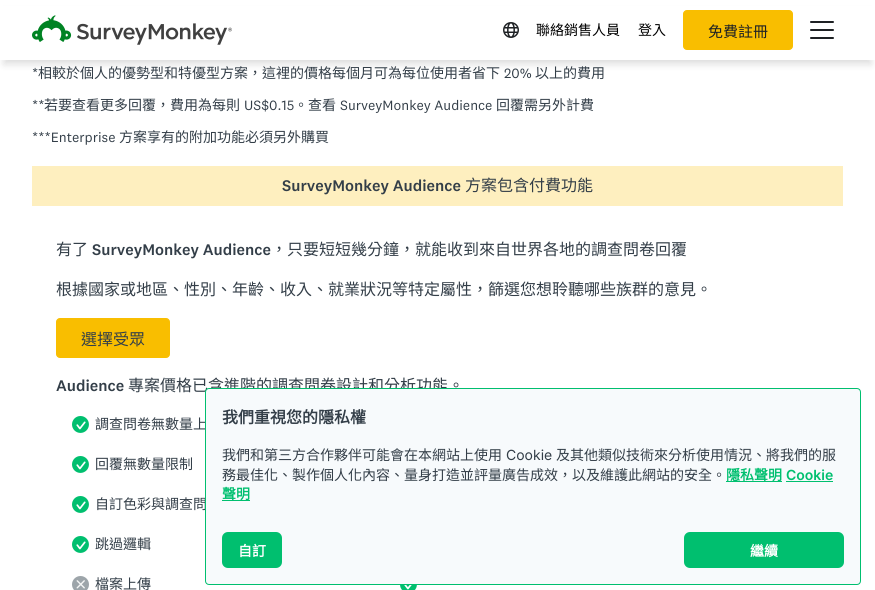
#include <cairo.h>
#include <math.h>
#include <stddef.h>


static void rgb(cairo_t *cr, int r, int g, int b)
{
	cairo_set_source_rgb(cr, r / 255.0, g / 255.0, b / 255.0);
}

static void face(cairo_t *cr, const char *family, double size, int italic, int bold)
{
	cairo_select_font_face(cr, family, italic ? CAIRO_FONT_SLANT_ITALIC : CAIRO_FONT_SLANT_NORMAL,
		bold ? CAIRO_FONT_WEIGHT_BOLD : CAIRO_FONT_WEIGHT_NORMAL);
	cairo_set_font_size(cr, size);
}

static void label(cairo_t *cr, double x, double y, const char *s)
{
	cairo_move_to(cr, x, y);
	cairo_show_text(cr, s);
}

static void rect(cairo_t *cr, double x, double y, double w, double h)
{
	cairo_rectangle(cr, x, y, w, h);
	cairo_fill(cr);
}

static void rrect(cairo_t *cr, double x, double y, double w, double h, double r)
{
	cairo_new_sub_path(cr);
	cairo_arc(cr, x + w - r, y + h - r, r, 0, M_PI / 2);
	cairo_arc(cr, x + r, y + h - r, r, M_PI / 2, M_PI);
	cairo_arc(cr, x + r, y + r, r, M_PI, 1.5 * M_PI);
	cairo_arc(cr, x + w - r, y + r, r, 1.5 * M_PI, 2 * M_PI);
	cairo_close_path(cr);
}

static void soft_shadow(cairo_t *cr, double x, double y, double w, double h, double r, double blur, double alpha)
{
	cairo_push_group_with_content(cr, CAIRO_CONTENT_ALPHA);
	cairo_set_operator(cr, CAIRO_OPERATOR_SOURCE);
	for (int i = 15; i >= -15 && fmin(w, h) + blur * i / 3 > 0; i -= 2) {
		double e = blur * i / 6;
		cairo_set_source_rgba(cr, 0, 0, 0, alpha * erfc((i - 1) / 8.5) / 2);
		rrect(cr, x - e, y - e, w + 2 * e, h + 2 * e, fmax(0, fmin(r + e + blur * .6, fmin(w, h) / 2 + e)));
		cairo_fill(cr);
	}
	cairo_pattern_t *soft = cairo_pop_group(cr);
	cairo_mask(cr, soft);
	cairo_pattern_destroy(soft);
}

static void image(cairo_t *cr, const char *path, double x, double y, double w, double h)
{
	cairo_surface_t *image = cairo_image_surface_create_from_png(path);
	cairo_save(cr);
	cairo_set_source_surface(cr, image, x, y);
	cairo_rectangle(cr, x, y, w, h);
	cairo_fill(cr);
	cairo_restore(cr);
	cairo_surface_destroy(image);
}

static void draw(cairo_t *cr) {
	rgb(cr, 255, 255, 255);
	cairo_paint(cr);
	rgb(cr, 0, 0, 0);
	soft_shadow(cr, 4, 12, 867, 52, 0, 4, 0.14);
	rgb(cr, 255, 255, 255);
	rect(cr, 0, 6, 875, 54);
	image(cr, "image0.png", 32, 15, 200, 30);
	image(cr, "image1.png", 503, 22, 16, 16);
	face(cr, "Noto Sans CJK TC", 14, 0, 0);
	rgb(cr, 0, 0, 0);
	label(cr, 536, 35, "聯絡銷售人員");
	label(cr, 638, 35, "登入");
	rgb(cr, 249, 190, 0);
	rrect(cr, 683.5, 10.5, 109, 39, 3.5);
	cairo_fill_preserve(cr);
	cairo_set_line_width(cr, 1);
	cairo_stroke(cr);
	face(cr, "Noto Sans CJK TC", 15, 0, 0);
	rgb(cr, 30, 33, 36);
	label(cr, 708, 37, "免費註冊");
	rrect(cr, 810, 29, 24, 2, 1);
	cairo_fill(cr);
	rrect(cr, 810, 21, 24, 2, 1);
	cairo_fill(cr);
	rrect(cr, 810, 37, 24, 2, 1);
	cairo_fill(cr);
	face(cr, "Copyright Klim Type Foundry", 14, 0, 0);
	rgb(cr, 51, 62, 72);
	label(cr, 32, 78, "*");
	face(cr, "Noto Sans CJK TC", 14, 0, 0);
	label(cr, 38, 78, "相較於個人的優勢型和特優型方案，這裡的價格每個月可為每位使用者省下");
	face(cr, "Copyright Klim Type Foundry", 14, 0, 0);
	label(cr, 504, 78, "20%");
	face(cr, "Noto Sans CJK TC", 14, 0, 0);
	label(cr, 535, 78, "以上的費用");
	face(cr, "Copyright Klim Type Foundry", 14, 0, 0);
	label(cr, 32, 110, "**");
	face(cr, "Noto Sans CJK TC", 14, 0, 0);
	label(cr, 44, 110, "若要查看更多回覆，費用為每則");
	face(cr, "Copyright Klim Type Foundry", 14, 0, 0);
	label(cr, 244, 110, "US$0.15");
	face(cr, "Noto Sans CJK TC", 14, 0, 0);
	label(cr, 294, 110, "。查看");
	face(cr, "Copyright Klim Type Foundry", 14, 0, 0);
	label(cr, 340, 110, "SurveyMonkey Audience");
	face(cr, "Noto Sans CJK TC", 14, 0, 0);
	label(cr, 496, 110, "回覆需另外計費");
	face(cr, "Copyright Klim Type Foundry", 14, 0, 0);
	label(cr, 32, 142, "***Enterprise");
	face(cr, "Noto Sans CJK TC", 14, 0, 0);
	label(cr, 119, 142, "方案享有的附加功能必須另外購買");
	rgb(cr, 254, 239, 191);
	rect(cr, 32, 166, 811, 40);
	face(cr, "Copyright Klim Type Foundry Medium", 16, 0, 0);
	rgb(cr, 51, 62, 72);
	label(cr, 282, 191, "SurveyMonkey Audience");
	face(cr, "Noto Sans CJK TC", 16, 0, 0);
	label(cr, 465, 191, "方案包含付費功能");
	label(cr, 56, 255, "有了");
	face(cr, "Copyright Klim Type Foundry Medium", 16, 0, 0);
	label(cr, 92, 255, "SurveyMonkey Audience");
	face(cr, "Noto Sans CJK TC", 16, 0, 0);
	label(cr, 271, 255, "，只要短短幾分鐘，就能收到來自世界各地的調查問卷回覆");
	label(cr, 56, 295, "根據國家或地區、性別、年齡、收入、就業狀況等特定屬性，篩選您想聆聽哪些族群的意見。");
	rgb(cr, 249, 190, 0);
	rrect(cr, 56.5, 318.5, 113, 39, 3.5);
	cairo_fill_preserve(cr);
	cairo_stroke(cr);
	rgb(cr, 51, 62, 72);
	label(cr, 81, 345, "選擇受眾");
	face(cr, "Copyright Klim Type Foundry Medium", 16, 0, 0);
	label(cr, 56, 391, "Audience");
	face(cr, "Noto Sans CJK TC", 16, 0, 0);
	label(cr, 128, 391, "專案價格已含進階的調查問卷設計和分析功能。");
	image(cr, "image2.png", 72, 416, 17, 17);
	face(cr, "Noto Sans CJK TC", 14, 0, 0);
	label(cr, 95, 429, "調查問卷無數量上");
	image(cr, "image2.png", 72, 456, 17, 17);
	label(cr, 95, 469, "回覆無數量限制");
	image(cr, "image2.png", 72, 496, 17, 17);
	label(cr, 95, 509, "自訂色彩與調查問");
	image(cr, "image2.png", 72, 536, 17, 17);
	label(cr, 95, 549, "跳過邏輯");
	image(cr, "image3.png", 72, 576, 17, 14);
	label(cr, 95, 589, "檔案上傳");
	image(cr, "image4.png", 400, 585, 17, 5);
	rgb(cr, 247, 250, 252);
	rrect(cr, 205.5, 388.5, 655, 196, 3.5);
	cairo_fill_preserve(cr);
	rgb(cr, 0, 191, 111);
	cairo_stroke(cr);
	face(cr, "Noto Sans CJK TC", 16, 0, 1);
	rgb(cr, 51, 62, 72);
	label(cr, 222, 423, "我們重視您的隱私權");
	face(cr, "Noto Sans CJK TC", 14, 0, 0);
	label(cr, 222, 460, "我們和第三方合作夥伴可能會在本網站上使用");
	face(cr, "Inter", 14, 0, 0);
	label(cr, 506, 460, "Cookie");
	face(cr, "Noto Sans CJK TC", 14, 0, 0);
	label(cr, 556, 460, "及其他類似技術來分析使用情況、將我們的服");
	label(cr, 222, 480, "務最佳化、製作個人化內容、量身打造並評量廣告成效，以及維護此網站的安全。");
	rgb(cr, 0, 191, 111);
	rect(cr, 726, 481, 56, 1);
	face(cr, "Noto Sans CJK TC", 14, 0, 1);
	label(cr, 726, 480, "隱私聲明");
	face(cr, "Inter SemiBold", 14, 0, 0);
	label(cr, 786, 480, "Cookie");
	rect(cr, 786, 481, 47, 1);
	rect(cr, 222, 500, 28, 1);
	face(cr, "Noto Sans CJK TC", 14, 0, 1);
	label(cr, 222, 499, "聲明");
	rrect(cr, 222, 532, 60, 36, 6);
	cairo_fill(cr);
	rgb(cr, 255, 255, 255);
	label(cr, 238, 556, "自訂");
	rgb(cr, 0, 191, 111);
	rrect(cr, 684, 532, 160, 36, 6);
	cairo_fill(cr);
	rgb(cr, 255, 255, 255);
	label(cr, 750, 556, "繼續");
}

int main(void) {
	cairo_surface_t *surface = cairo_image_surface_create(CAIRO_FORMAT_RGB24, 875, 590);
	cairo_t *cr = cairo_create(surface);
	cairo_font_options_t *options = cairo_font_options_create();
	cairo_font_options_set_hint_metrics(options, CAIRO_HINT_METRICS_OFF);
	cairo_font_options_set_hint_style(options, CAIRO_HINT_STYLE_NONE);
	cairo_set_font_options(cr, options);
	cairo_set_miter_limit(cr, 4);
	draw(cr);
	cairo_surface_write_to_png(surface, "render.png");
	cairo_font_options_destroy(options);
	cairo_destroy(cr);
	cairo_surface_destroy(surface);
	return 0;
}
